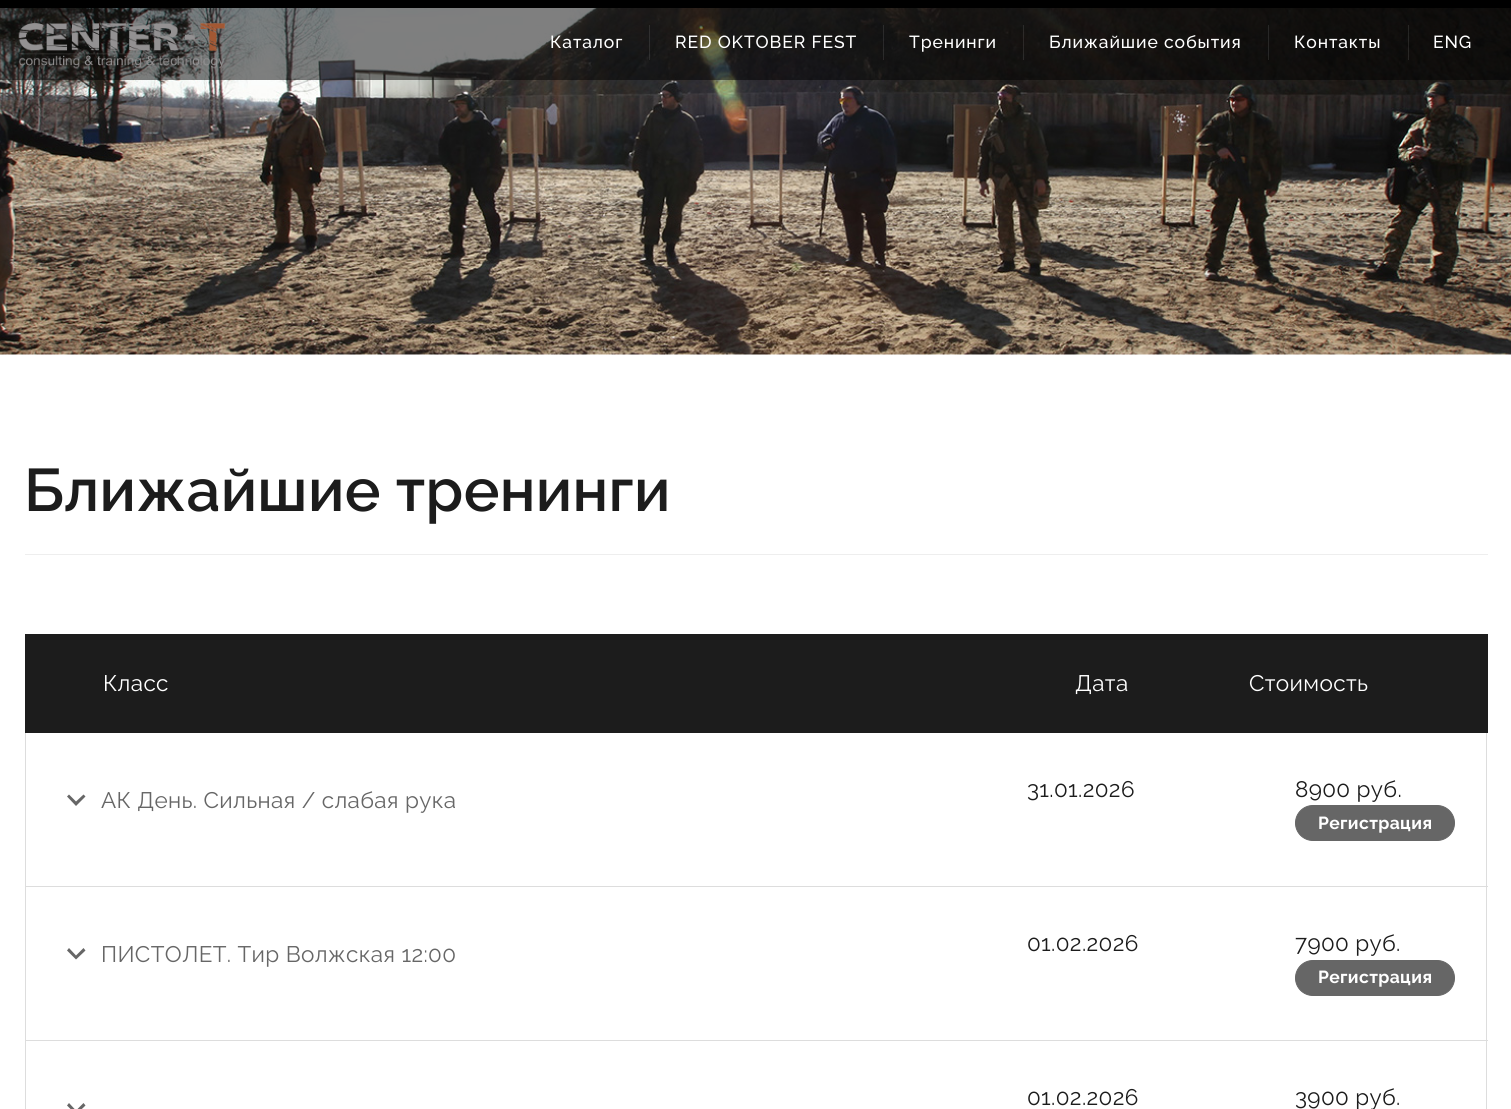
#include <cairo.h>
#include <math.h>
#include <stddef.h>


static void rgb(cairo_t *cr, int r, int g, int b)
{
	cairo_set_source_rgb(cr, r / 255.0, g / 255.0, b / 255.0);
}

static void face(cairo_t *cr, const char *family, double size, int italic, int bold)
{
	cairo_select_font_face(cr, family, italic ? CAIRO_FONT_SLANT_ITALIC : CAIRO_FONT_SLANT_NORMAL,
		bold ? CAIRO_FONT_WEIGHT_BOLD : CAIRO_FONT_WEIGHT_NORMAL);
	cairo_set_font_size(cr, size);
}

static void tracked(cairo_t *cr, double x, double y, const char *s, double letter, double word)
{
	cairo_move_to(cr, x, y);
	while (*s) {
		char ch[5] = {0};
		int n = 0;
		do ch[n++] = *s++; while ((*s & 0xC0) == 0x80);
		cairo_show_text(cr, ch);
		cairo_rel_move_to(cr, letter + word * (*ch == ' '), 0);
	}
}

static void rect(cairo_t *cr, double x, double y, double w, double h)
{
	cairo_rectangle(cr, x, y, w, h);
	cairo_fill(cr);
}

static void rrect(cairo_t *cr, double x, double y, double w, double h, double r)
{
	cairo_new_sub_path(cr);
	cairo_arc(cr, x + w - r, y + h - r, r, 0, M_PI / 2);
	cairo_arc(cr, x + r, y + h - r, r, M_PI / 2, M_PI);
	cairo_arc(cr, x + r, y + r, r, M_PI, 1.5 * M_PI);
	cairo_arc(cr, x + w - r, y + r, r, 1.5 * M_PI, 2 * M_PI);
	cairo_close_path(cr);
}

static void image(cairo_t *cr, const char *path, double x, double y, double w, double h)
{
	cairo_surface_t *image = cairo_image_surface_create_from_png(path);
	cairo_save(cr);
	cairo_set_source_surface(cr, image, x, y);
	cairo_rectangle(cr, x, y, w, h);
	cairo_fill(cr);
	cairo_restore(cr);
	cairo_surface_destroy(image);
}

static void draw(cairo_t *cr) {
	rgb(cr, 255, 255, 255);
	cairo_paint(cr);
	image(cr, "image0.png", 0, 8, 1511, 347);
	cairo_set_source_rgba(cr, 0, 0, 0, 0.5);
	rect(cr, 0, 8, 1511, 72);
	rgb(cr, 0, 0, 0);
	rect(cr, 0, 0, 1511, 8);
	image(cr, "image1.png", 18, 23, 207, 46);
	face(cr, "Raleway Medium", 17.5, 0, 0);
	rgb(cr, 255, 255, 255);
	tracked(cr, 550, 48, "Каталог", 0.9, 0);
	cairo_set_source_rgba(cr, 1, 1, 1, 0.1);
	rect(cr, 649, 25, 1, 35);
	rgb(cr, 255, 255, 255);
	tracked(cr, 675, 48, "RED OKTOBER FEST", 0.9, 0);
	cairo_set_source_rgba(cr, 1, 1, 1, 0.1);
	rect(cr, 883, 25, 1, 35);
	rgb(cr, 255, 255, 255);
	tracked(cr, 909, 48, "Тренинги", 0.9, 0);
	cairo_set_source_rgba(cr, 1, 1, 1, 0.1);
	rect(cr, 1023, 25, 1, 35);
	rgb(cr, 255, 255, 255);
	tracked(cr, 1049, 48, "Ближайшие события", 0.9, 0);
	cairo_set_source_rgba(cr, 1, 1, 1, 0.1);
	rect(cr, 1268, 25, 1, 35);
	rgb(cr, 255, 255, 255);
	tracked(cr, 1294, 48, "Контакты", 0.9, 0);
	cairo_set_source_rgba(cr, 1, 1, 1, 0.1);
	rect(cr, 1408, 25, 1, 35);
	rgb(cr, 255, 255, 255);
	tracked(cr, 1433, 48, "ENG", 0.9, 0);
	face(cr, "Raleway SemiBold", 60, 0, 0);
	rgb(cr, 28, 28, 28);
	tracked(cr, 24, 511, "Ближайшие тренинги", 0.35, 0);
	rgb(cr, 238, 238, 238);
	rect(cr, 25, 554, 1463, 1);
	rgb(cr, 28, 28, 28);
	rect(cr, 25, 634, 1463, 99);
	face(cr, "Raleway", 22.5, 0, 0);
	rgb(cr, 255, 255, 255);
	tracked(cr, 103, 691, "Класс", 0.35, 0);
	tracked(cr, 1075, 691, "Дата", 0.35, 0);
	tracked(cr, 1249, 691, "Стоимость", 0.35, 0);
	rgb(cr, 221, 221, 221);
	rect(cr, 25, 886, 1145, 1);
	rect(cr, 25, 733, 1, 155);
	rgb(cr, 102, 102, 102);
	cairo_new_path(cr);
	cairo_move_to(cr, 69, 794.5);
	cairo_line_to(cr, 76, 801.5);
	cairo_line_to(cr, 83.5, 794.5);
	cairo_line_to(cr, 85.5, 796.5);
	cairo_line_to(cr, 76, 806);
	cairo_line_to(cr, 67, 796.5);
	cairo_close_path(cr);
	cairo_fill(cr);
	tracked(cr, 101, 808, "АК День. Сильная / слабая рука", 0.35, 0);
	rgb(cr, 28, 28, 28);
	tracked(cr, 1027, 797, "31.01.2026", 0.35, 0);
	rgb(cr, 221, 221, 221);
	rect(cr, 1486, 733, 1, 376);
	rect(cr, 1170, 886, 318, 1);
	rgb(cr, 28, 28, 28);
	tracked(cr, 1295, 797, "8900 руб.", 0.35, 0);
	rgb(cr, 102, 102, 102);
	rrect(cr, 1295.5, 805.5, 159, 35, 17.5);
	cairo_fill_preserve(cr);
	cairo_set_line_width(cr, 1);
	cairo_stroke(cr);
	face(cr, "Raleway", 17.5, 0, 1);
	rgb(cr, 255, 255, 255);
	tracked(cr, 1318, 829, "Регистрация", 0.35, 0);
	rgb(cr, 221, 221, 221);
	rect(cr, 25, 1040, 1463, 1);
	rect(cr, 25, 888, 1, 221);
	rgb(cr, 102, 102, 102);
	cairo_new_path(cr);
	cairo_move_to(cr, 69, 948);
	cairo_line_to(cr, 76, 955.5);
	cairo_line_to(cr, 83.5, 948);
	cairo_line_to(cr, 85.5, 950.5);
	cairo_line_to(cr, 76, 959.5);
	cairo_line_to(cr, 67, 950.5);
	cairo_close_path(cr);
	cairo_fill(cr);
	face(cr, "Raleway", 22.5, 0, 0);
	tracked(cr, 101, 962, "ПИСТОЛЕТ. Тир Волжская 12:00", 0.35, 0);
	rgb(cr, 28, 28, 28);
	tracked(cr, 1027, 951, "01.02.2026", 0.35, 0);
	tracked(cr, 1295, 951, "7900 руб.", 0.35, 0);
	rgb(cr, 102, 102, 102);
	rrect(cr, 1295.5, 960.5, 159, 35, 17.5);
	cairo_fill_preserve(cr);
	cairo_stroke(cr);
	face(cr, "Raleway", 17.5, 0, 1);
	rgb(cr, 255, 255, 255);
	tracked(cr, 1318, 983, "Регистрация", 0.35, 0);
	rgb(cr, 102, 102, 102);
	cairo_new_path(cr);
	cairo_move_to(cr, 69, 1103);
	cairo_line_to(cr, 76, 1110.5);
	cairo_line_to(cr, 83.5, 1103);
	cairo_line_to(cr, 85.5, 1105.5);
	cairo_line_to(cr, 76, 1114.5);
	cairo_line_to(cr, 67, 1105.5);
	cairo_close_path(cr);
	cairo_fill(cr);
	face(cr, "Raleway", 22.5, 0, 0);
	rgb(cr, 28, 28, 28);
	tracked(cr, 1027, 1105, "01.02.2026", 0.35, 0);
	tracked(cr, 1295, 1105, "3900 руб.", 0.35, 0);
}

int main(void) {
	cairo_surface_t *surface = cairo_image_surface_create(CAIRO_FORMAT_RGB24, 1511, 1109);
	cairo_t *cr = cairo_create(surface);
	cairo_font_options_t *options = cairo_font_options_create();
	cairo_font_options_set_hint_metrics(options, CAIRO_HINT_METRICS_OFF);
	cairo_font_options_set_hint_style(options, CAIRO_HINT_STYLE_NONE);
	cairo_set_font_options(cr, options);
	cairo_set_miter_limit(cr, 4);
	draw(cr);
	cairo_surface_write_to_png(surface, "render.png");
	cairo_font_options_destroy(options);
	cairo_destroy(cr);
	cairo_surface_destroy(surface);
	return 0;
}
